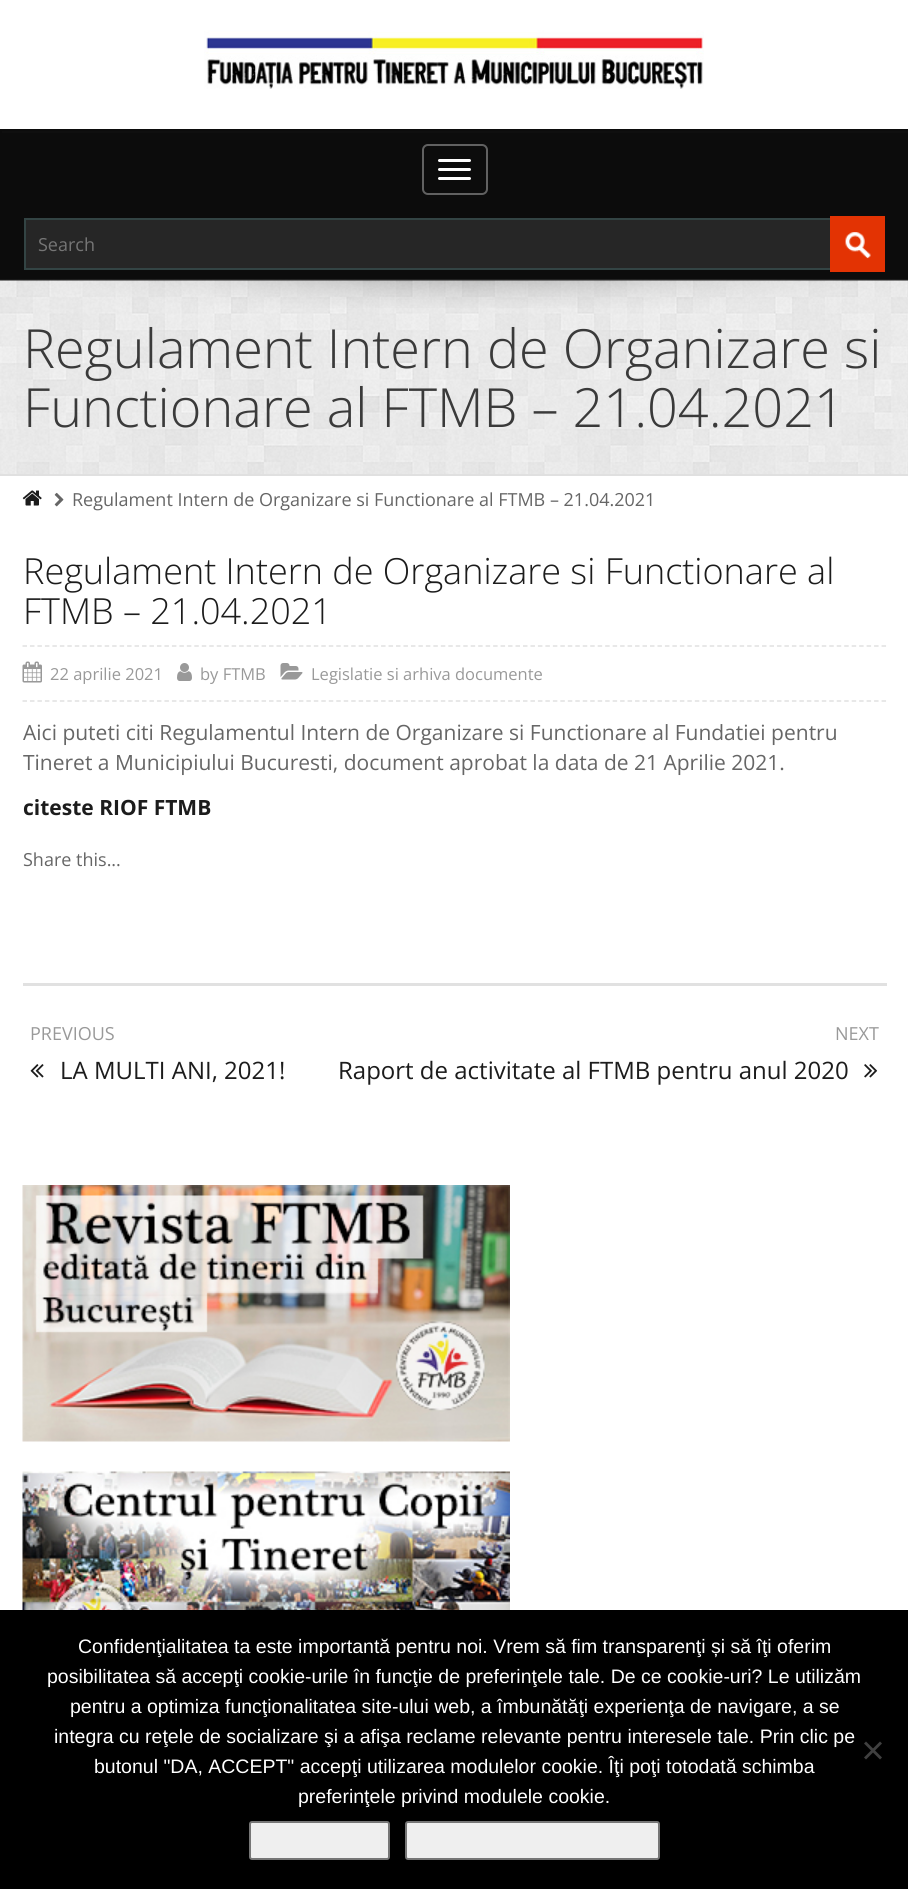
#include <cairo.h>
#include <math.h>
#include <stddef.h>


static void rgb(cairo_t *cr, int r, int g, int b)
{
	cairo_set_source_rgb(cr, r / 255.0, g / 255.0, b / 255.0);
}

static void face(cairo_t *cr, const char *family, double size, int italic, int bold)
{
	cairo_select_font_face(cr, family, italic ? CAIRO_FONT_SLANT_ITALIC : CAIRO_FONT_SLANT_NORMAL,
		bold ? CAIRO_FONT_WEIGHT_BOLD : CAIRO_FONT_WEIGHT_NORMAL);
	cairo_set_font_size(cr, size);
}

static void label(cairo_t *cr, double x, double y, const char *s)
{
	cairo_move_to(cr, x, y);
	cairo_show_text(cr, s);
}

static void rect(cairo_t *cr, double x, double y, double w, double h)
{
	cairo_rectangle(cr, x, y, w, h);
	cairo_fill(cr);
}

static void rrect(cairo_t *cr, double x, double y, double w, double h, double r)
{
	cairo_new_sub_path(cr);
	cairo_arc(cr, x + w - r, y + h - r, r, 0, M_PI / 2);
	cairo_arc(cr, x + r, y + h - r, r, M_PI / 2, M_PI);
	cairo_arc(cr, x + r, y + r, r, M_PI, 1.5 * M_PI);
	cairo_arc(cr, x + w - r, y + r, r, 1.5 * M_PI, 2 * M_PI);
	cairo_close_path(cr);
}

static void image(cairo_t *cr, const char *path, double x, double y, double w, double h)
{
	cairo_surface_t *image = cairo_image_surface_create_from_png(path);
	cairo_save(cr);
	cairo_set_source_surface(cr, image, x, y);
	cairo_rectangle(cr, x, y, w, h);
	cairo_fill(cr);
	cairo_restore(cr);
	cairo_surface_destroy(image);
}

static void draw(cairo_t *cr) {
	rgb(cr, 255, 255, 255);
	cairo_paint(cr);
	image(cr, "image0.png", 204, 30, 500, 59);
	rgb(cr, 12, 12, 12);
	rect(cr, 0, 129, 908, 152);
	rgb(cr, 15, 15, 15);
	rect(cr, 2, 131, 906, 2);
	rrect(cr, 423, 145, 64, 49, 5);
	rgb(cr, 97, 97, 97);
	cairo_stroke(cr);
	rgb(cr, 255, 255, 255);
	rrect(cr, 438, 159, 33, 3, 1.5);
	cairo_fill(cr);
	rrect(cr, 438, 168, 33, 3, 1.5);
	cairo_fill(cr);
	rrect(cr, 438, 177, 33, 3, 1.5);
	cairo_fill(cr);
	rgb(cr, 38, 38, 38);
	rect(cr, 26, 220, 804, 48);
	cairo_rectangle(cr, 25, 219, 808, 50);
	rgb(cr, 51, 68, 68);
	cairo_stroke(cr);
	face(cr, "Open Sans", 18, 0, 0);
	rgb(cr, 117, 117, 117);
	label(cr, 38, 251, "Search");
	rgb(cr, 227, 51, 3);
	rect(cr, 830, 216, 55, 56);
	image(cr, "image1.png", 845, 232, 26, 27);
	image(cr, "image2.png", 0, 280, 908, 194);
	image(cr, "image3.png", 0, 279, 908, 29);
	face(cr, "Open Sans Light", 54, 0, 0);
	rgb(cr, 58, 58, 58);
	label(cr, 23, 368, "Regulament Intern de Organizare si");
	label(cr, 23, 427, "Functionare al FTMB – 21.04.2021");
	rgb(cr, 224, 224, 224);
	rect(cr, 0, 474, 908, 2);
	image(cr, "image4.png", 22, 490, 20, 16);
	image(cr, "image5.png", 54, 492, 10, 15);
	face(cr, "Open Sans", 18, 0, 0);
	rgb(cr, 102, 102, 102);
	label(cr, 72, 506, "Regulament Intern de Organizare si Functionare al FTMB – 21.04.2021");
	face(cr, "Open Sans Light", 36, 0, 0);
	rgb(cr, 28, 28, 28);
	label(cr, 23, 584, "Regulament Intern de Organizare si Functionare al");
	label(cr, 23, 624, "FTMB – 21.04.2021");
	cairo_new_path(cr);
	cairo_move_to(cr, 22.5, 646);
	cairo_line_to(cr, 886.5, 646);
	rgb(cr, 225, 225, 225);
	cairo_set_line_width(cr, 1.5);
	cairo_set_dash(cr, (double[]){4.5, 2.97}, 2, 0);
	cairo_stroke(cr);
	cairo_new_path(cr);
	cairo_move_to(cr, 22.5, 701);
	cairo_line_to(cr, 886.5, 701);
	cairo_stroke(cr);
	image(cr, "image6.png", 22, 661, 20, 22);
	face(cr, "Open Sans", 16.5, 0, 0);
	rgb(cr, 153, 153, 153);
	label(cr, 50, 680, "22 aprilie 2021");
	image(cr, "image7.png", 177, 663, 15, 18);
	label(cr, 200, 680, "by FTMB");
	image(cr, "image8.png", 280, 663, 23, 17);
	label(cr, 311, 680, "Legislatie si arhiva documente");
	face(cr, "Open Sans", 21, 0, 0);
	rgb(cr, 102, 102, 102);
	label(cr, 23, 740, "Aici puteti citi Regulamentul Intern de Organizare si Functionare al Fundatiei pentru");
	label(cr, 23, 770, "Tineret a Municipiului Bucuresti, document aprobat la data de 21 Aprilie 2021.");
	face(cr, "Open Sans", 21, 0, 1);
	rgb(cr, 28, 28, 28);
	label(cr, 23, 815, "citeste RIOF FTMB");
	face(cr, "Open Sans", 18, 0, 0);
	rgb(cr, 102, 102, 102);
	label(cr, 23, 866, "Share this...");
	rgb(cr, 225, 225, 225);
	rect(cr, 23, 983, 864, 3);
	rgb(cr, 153, 153, 153);
	label(cr, 30, 1040, "PREVIOUS");
	image(cr, "image9.png", 30, 1064, 14, 14);
	face(cr, "Open Sans", 24, 0, 0);
	rgb(cr, 28, 28, 28);
	label(cr, 60, 1079, "LA MULTI ANI, 2021!");
	face(cr, "Open Sans", 18, 0, 0);
	rgb(cr, 153, 153, 153);
	label(cr, 835, 1040, "NEXT");
	face(cr, "Open Sans", 24, 0, 0);
	rgb(cr, 28, 28, 28);
	label(cr, 338, 1079, "Raport de activitate al FTMB pentru anul 2020");
	image(cr, "image10.png", 864, 1064, 14, 14);
	image(cr, "image11.png", 22, 1185, 488, 257);
	image(cr, "image12.png", 22, 1471, 488, 139);
	rgb(cr, 0, 0, 0);
	rect(cr, 0, 1610, 908, 279);
	face(cr, "Liberation Sans", 19.5, 0, 0);
	rgb(cr, 255, 255, 255);
	label(cr, 78, 1653, "Confidenţialitatea ta este importantă pentru noi. Vrem să fim transparenţi și să îţi oferim");
	label(cr, 47, 1683, "posibilitatea să accepţi cookie-urile în funcţie de preferinţele tale. De ce cookie-uri? Le utilizăm");
	label(cr, 70, 1713, "pentru a optimiza funcţionalitatea site-ului web, a îmbunătăţi experienţa de navigare, a se");
	label(cr, 54, 1743, "integra cu reţele de socializare şi a afişa reclame relevante pentru interesele tale. Prin clic pe");
	label(cr, 94, 1773, "butonul \"DA, ACCEPT\" accepţi utilizarea modulelor cookie. Îţi poţi totodată schimba");
	label(cr, 298, 1803, "preferinţele privind modulele cookie.");
	rgb(cr, 64, 64, 64);
	cairo_new_path(cr);
	cairo_move_to(cr, 880, 1741.5);
	cairo_line_to(cr, 882, 1743.5);
	cairo_line_to(cr, 866, 1759.5);
	cairo_line_to(cr, 864, 1757.5);
	cairo_close_path(cr);
	cairo_fill(cr);
	cairo_new_path(cr);
	cairo_move_to(cr, 864, 1743.5);
	cairo_line_to(cr, 866, 1741.5);
	cairo_line_to(cr, 882, 1757.5);
	cairo_line_to(cr, 880, 1759.5);
	cairo_close_path(cr);
	cairo_fill(cr);
	rgb(cr, 239, 239, 239);
	rrect(cr, 250, 1822, 139, 37, 2);
	cairo_fill_preserve(cr);
	rgb(cr, 118, 118, 118);
	cairo_set_line_width(cr, 2);
	cairo_set_dash(cr, NULL, 0, 0);
	cairo_stroke(cr);
	rgb(cr, 239, 239, 239);
	rrect(cr, 406, 1822, 253, 37, 2);
	cairo_fill_preserve(cr);
	rgb(cr, 118, 118, 118);
	cairo_stroke(cr);
}

int main(void) {
	cairo_surface_t *surface = cairo_image_surface_create(CAIRO_FORMAT_RGB24, 908, 1889);
	cairo_t *cr = cairo_create(surface);
	cairo_font_options_t *options = cairo_font_options_create();
	cairo_font_options_set_hint_metrics(options, CAIRO_HINT_METRICS_OFF);
	cairo_font_options_set_hint_style(options, CAIRO_HINT_STYLE_NONE);
	cairo_set_font_options(cr, options);
	cairo_set_miter_limit(cr, 4);
	draw(cr);
	cairo_surface_write_to_png(surface, "render.png");
	cairo_font_options_destroy(options);
	cairo_destroy(cr);
	cairo_surface_destroy(surface);
	return 0;
}
